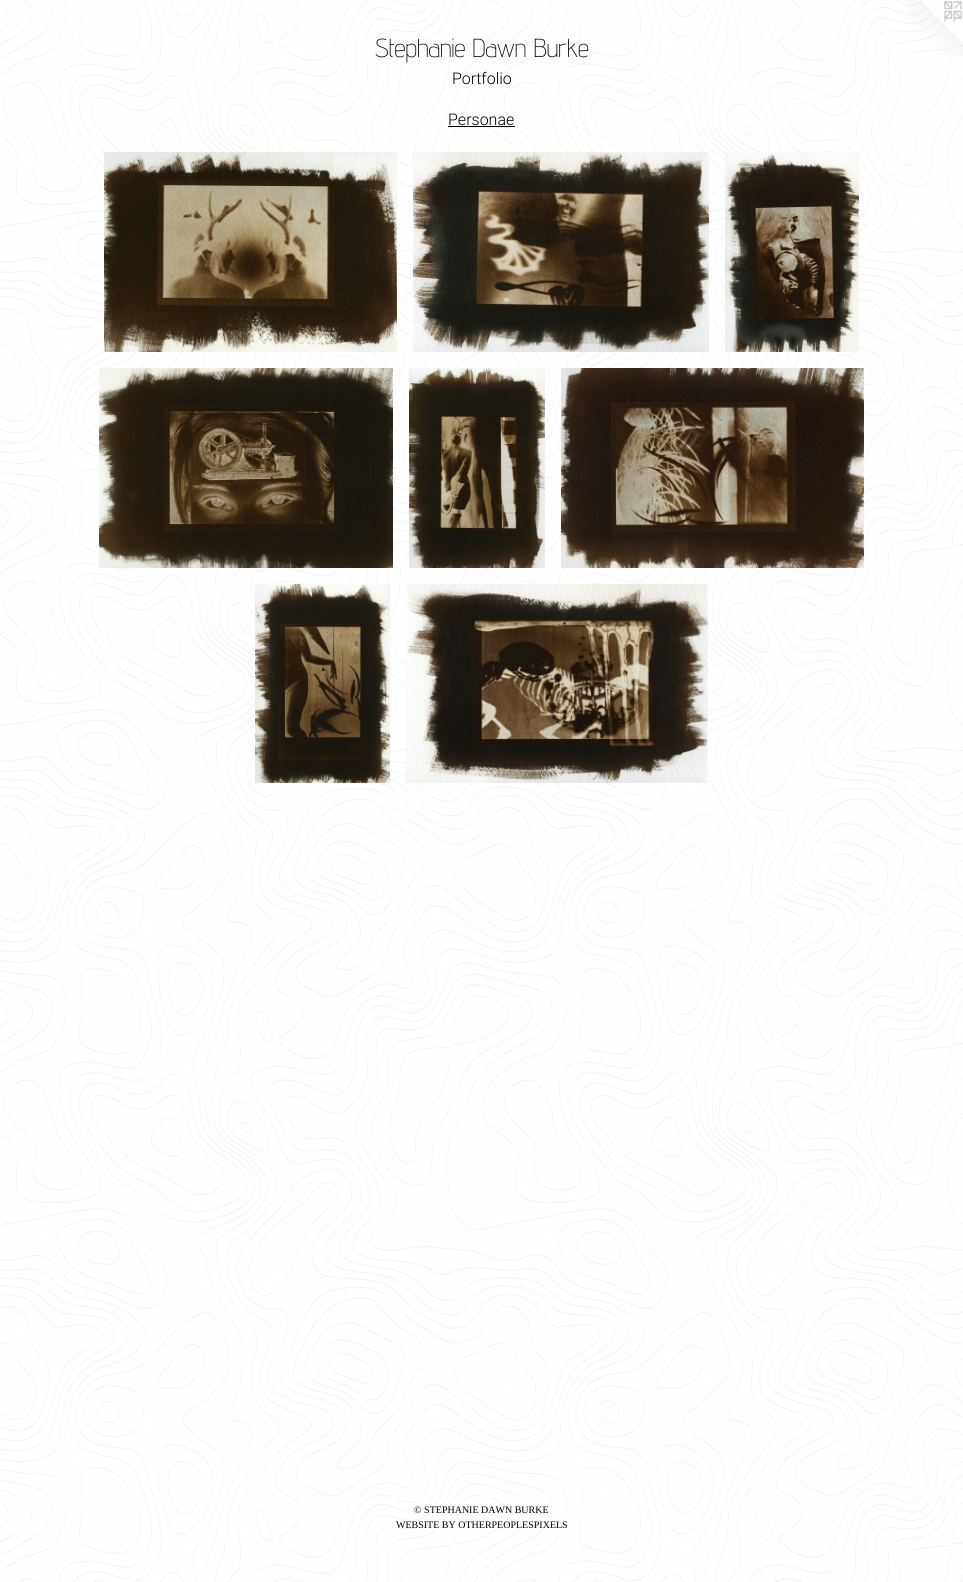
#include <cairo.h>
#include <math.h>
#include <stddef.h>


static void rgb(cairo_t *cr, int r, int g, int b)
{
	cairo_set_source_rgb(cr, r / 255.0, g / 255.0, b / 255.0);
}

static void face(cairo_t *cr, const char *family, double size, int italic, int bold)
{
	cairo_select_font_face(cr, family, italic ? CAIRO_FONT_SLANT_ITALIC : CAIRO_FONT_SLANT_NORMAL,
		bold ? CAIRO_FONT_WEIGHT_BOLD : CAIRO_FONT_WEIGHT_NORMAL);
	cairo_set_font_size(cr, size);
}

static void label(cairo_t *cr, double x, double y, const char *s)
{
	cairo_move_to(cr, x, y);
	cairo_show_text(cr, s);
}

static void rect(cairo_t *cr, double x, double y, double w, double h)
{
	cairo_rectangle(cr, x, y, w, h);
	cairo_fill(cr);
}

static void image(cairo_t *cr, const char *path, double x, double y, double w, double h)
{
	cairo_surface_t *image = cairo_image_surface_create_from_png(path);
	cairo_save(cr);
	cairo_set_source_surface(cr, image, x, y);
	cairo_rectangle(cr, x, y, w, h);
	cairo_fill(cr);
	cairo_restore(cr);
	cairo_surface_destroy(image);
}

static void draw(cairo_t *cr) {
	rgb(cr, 255, 255, 255);
	cairo_paint(cr);
	image(cr, "image0.png", 0, 0, 963, 1582);
	face(cr, "Advent Pro ExtraLight", 26, 0, 0);
	rgb(cr, 0, 0, 0);
	label(cr, 375, 57, "Stephanie Dawn Burke");
	image(cr, "image1.png", 907, 0, 56, 56);
	face(cr, "Roboto Light", 16, 0, 0);
	label(cr, 452, 84, "Portfolio");
	label(cr, 448, 125, "Personae");
	rect(cr, 448, 126, 67, 1);
	image(cr, "image2.png", 104, 152, 293, 200);
	image(cr, "image3.png", 413, 152, 296, 200);
	image(cr, "image4.png", 725, 152, 134, 200);
	image(cr, "image5.png", 99, 368, 294, 200);
	image(cr, "image6.png", 409, 368, 136, 200);
	image(cr, "image7.png", 561, 368, 303, 200);
	image(cr, "image8.png", 255, 584, 135, 199);
	image(cr, "image9.png", 406, 584, 302, 199);
	face(cr, "Liberation Serif", 10, 0, 0);
	label(cr, 414, 1513, "© STEPHANIE DAWN BURKE");
	label(cr, 396, 1528, "WEBSITE BY OTHERPEOPLESPIXELS");
}

int main(void) {
	cairo_surface_t *surface = cairo_image_surface_create(CAIRO_FORMAT_RGB24, 963, 1582);
	cairo_t *cr = cairo_create(surface);
	cairo_font_options_t *options = cairo_font_options_create();
	cairo_font_options_set_hint_metrics(options, CAIRO_HINT_METRICS_OFF);
	cairo_font_options_set_hint_style(options, CAIRO_HINT_STYLE_NONE);
	cairo_set_font_options(cr, options);
	cairo_set_miter_limit(cr, 4);
	draw(cr);
	cairo_surface_write_to_png(surface, "render.png");
	cairo_font_options_destroy(options);
	cairo_destroy(cr);
	cairo_surface_destroy(surface);
	return 0;
}
